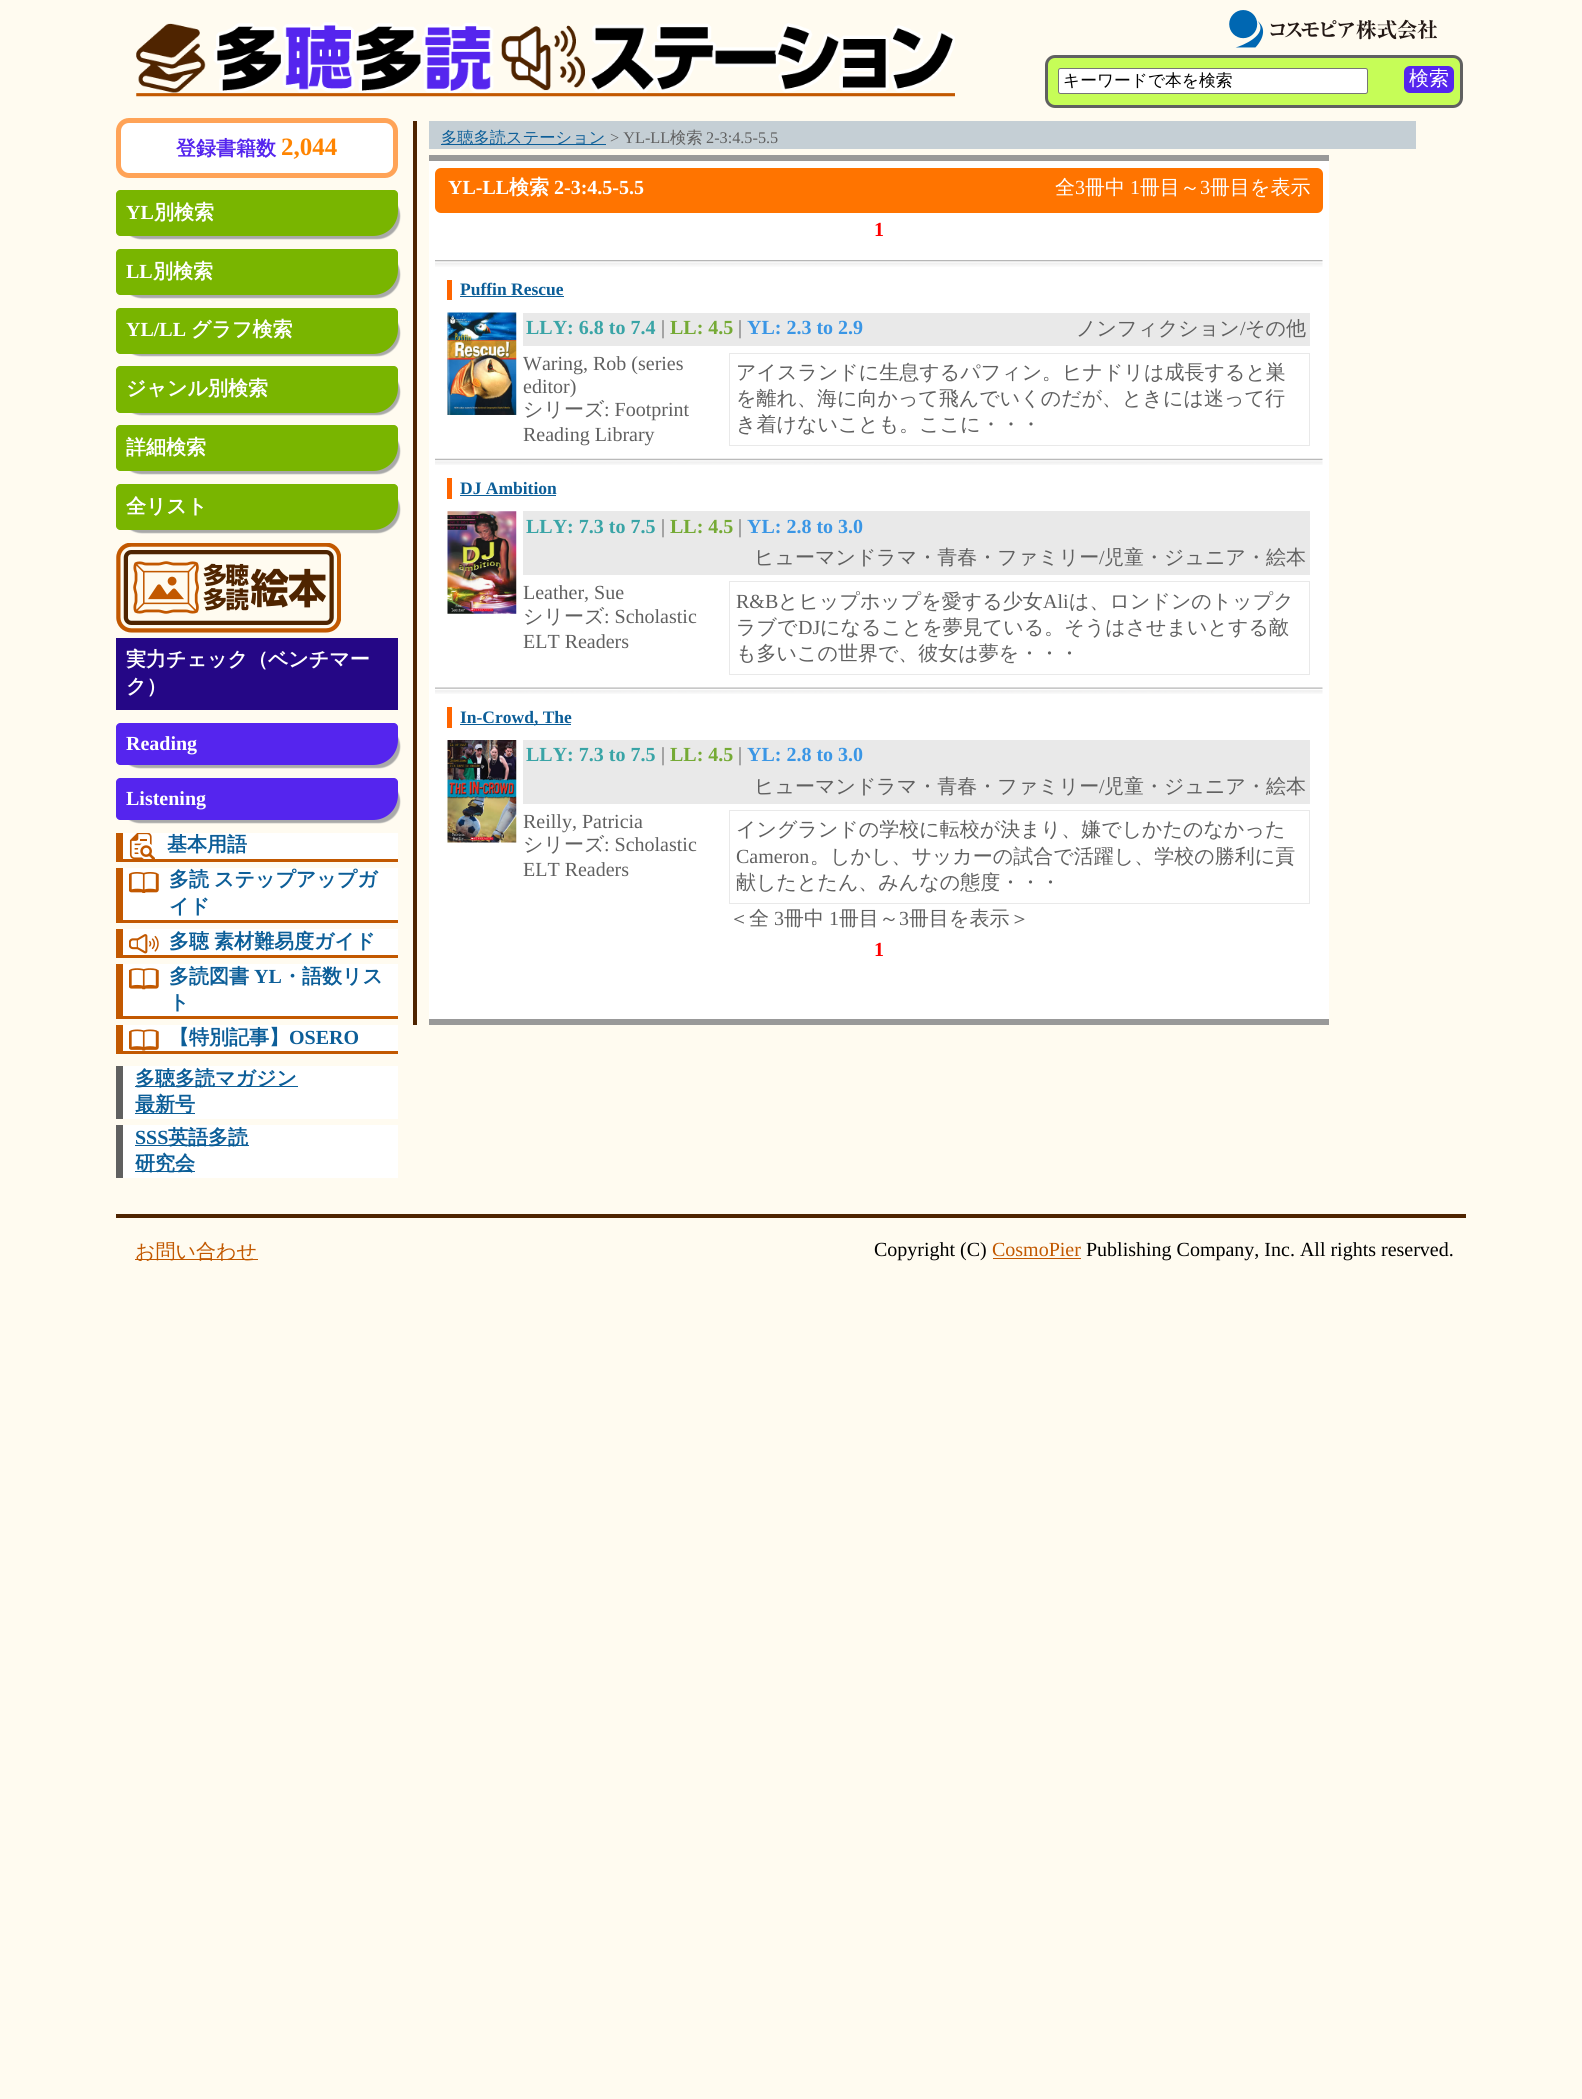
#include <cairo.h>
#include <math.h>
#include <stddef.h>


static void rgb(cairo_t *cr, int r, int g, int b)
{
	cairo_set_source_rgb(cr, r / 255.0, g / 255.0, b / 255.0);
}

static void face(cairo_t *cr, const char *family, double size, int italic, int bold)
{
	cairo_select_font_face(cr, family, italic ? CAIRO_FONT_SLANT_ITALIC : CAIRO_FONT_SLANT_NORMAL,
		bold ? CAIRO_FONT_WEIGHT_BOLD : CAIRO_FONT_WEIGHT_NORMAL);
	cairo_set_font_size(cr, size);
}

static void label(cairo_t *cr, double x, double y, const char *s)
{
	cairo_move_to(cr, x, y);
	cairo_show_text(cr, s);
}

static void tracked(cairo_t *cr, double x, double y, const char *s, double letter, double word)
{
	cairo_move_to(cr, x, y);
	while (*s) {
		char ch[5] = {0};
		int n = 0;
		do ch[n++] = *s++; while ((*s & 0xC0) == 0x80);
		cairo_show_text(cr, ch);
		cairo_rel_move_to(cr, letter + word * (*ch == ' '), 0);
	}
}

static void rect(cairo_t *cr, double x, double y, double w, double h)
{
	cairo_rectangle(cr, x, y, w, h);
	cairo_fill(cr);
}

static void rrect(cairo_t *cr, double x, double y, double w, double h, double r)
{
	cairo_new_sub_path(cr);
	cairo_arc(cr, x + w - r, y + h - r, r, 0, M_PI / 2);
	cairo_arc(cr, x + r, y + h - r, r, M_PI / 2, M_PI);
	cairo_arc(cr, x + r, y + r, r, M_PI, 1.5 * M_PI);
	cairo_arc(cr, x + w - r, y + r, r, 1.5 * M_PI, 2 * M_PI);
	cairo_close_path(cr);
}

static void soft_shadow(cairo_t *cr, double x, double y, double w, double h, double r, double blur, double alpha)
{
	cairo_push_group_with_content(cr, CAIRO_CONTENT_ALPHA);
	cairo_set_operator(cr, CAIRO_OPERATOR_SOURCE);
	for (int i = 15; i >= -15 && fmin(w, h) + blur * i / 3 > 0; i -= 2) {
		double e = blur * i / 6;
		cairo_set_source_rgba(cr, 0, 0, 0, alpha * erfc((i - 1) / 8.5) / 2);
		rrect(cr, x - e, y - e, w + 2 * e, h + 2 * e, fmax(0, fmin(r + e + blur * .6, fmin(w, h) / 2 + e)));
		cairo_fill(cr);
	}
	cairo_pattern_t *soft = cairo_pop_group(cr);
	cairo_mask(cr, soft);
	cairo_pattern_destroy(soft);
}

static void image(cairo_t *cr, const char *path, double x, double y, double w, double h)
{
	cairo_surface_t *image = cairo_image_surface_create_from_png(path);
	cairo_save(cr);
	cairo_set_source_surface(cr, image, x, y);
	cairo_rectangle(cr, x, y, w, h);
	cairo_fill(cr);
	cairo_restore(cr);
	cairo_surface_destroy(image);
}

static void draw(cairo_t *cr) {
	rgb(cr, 255, 251, 240);
	cairo_paint(cr);
	image(cr, "image0.png", 136, 22, 819, 75);
	image(cr, "image1.png", 1229, 10, 208, 38);
	rgb(cr, 198, 253, 87);
	rrect(cr, 1046.5, 56.5, 415, 50, 8.5);
	cairo_fill_preserve(cr);
	rgb(cr, 96, 96, 96);
	cairo_set_line_width(cr, 3);
	cairo_stroke(cr);
	rgb(cr, 255, 255, 255);
	rrect(cr, 1058.5, 68.5, 309, 25, 2);
	cairo_fill_preserve(cr);
	rgb(cr, 118, 118, 118);
	cairo_set_line_width(cr, 1);
	cairo_stroke(cr);
	face(cr, "WenQuanYi Zen Hei Medium", 16.75, 0, 0);
	rgb(cr, 0, 0, 0);
	label(cr, 1063, 86, "キーワードで本を検索");
	rgb(cr, 85, 37, 238);
	rrect(cr, 1404, 66, 50, 27, 6);
	cairo_fill(cr);
	face(cr, "WenQuanYi Zen Hei Medium", 20, 0, 0);
	rgb(cr, 255, 255, 255);
	label(cr, 1409, 85, "検索");
	rrect(cr, 118.5, 120.5, 277, 55, 10.5);
	cairo_fill_preserve(cr);
	rgb(cr, 255, 163, 87);
	cairo_set_line_width(cr, 5);
	cairo_stroke(cr);
	face(cr, "WenQuanYi Zen Hei", 20, 0, 1);
	rgb(cr, 85, 37, 238);
	label(cr, 176, 155, "登録書籍数");
	face(cr, "Liberation Serif", 25, 0, 1);
	rgb(cr, 255, 132, 0);
	label(cr, 281, 155, "2,044");
	rgb(cr, 169, 169, 169);
	soft_shadow(cr, 119, 193, 281, 46, 25, 0.5, 1);
	rgb(cr, 121, 181, 0);
	cairo_new_path(cr);
	cairo_move_to(cr, 120, 190);
	cairo_line_to(cr, 394, 190);
	cairo_curve_to(cr, 396, 190, 398, 192, 398, 194);
	cairo_line_to(cr, 398, 211);
	cairo_curve_to(cr, 398, 225, 387, 236, 373, 236);
	cairo_line_to(cr, 120, 236);
	cairo_curve_to(cr, 118, 236, 116, 234, 116, 232);
	cairo_line_to(cr, 116, 194);
	cairo_curve_to(cr, 116, 192, 118, 190, 120, 190);
	cairo_close_path(cr);
	cairo_fill(cr);
	face(cr, "Liberation Serif", 20, 0, 1);
	rgb(cr, 255, 255, 255);
	label(cr, 126, 219, "YL");
	face(cr, "WenQuanYi Zen Hei", 20, 0, 1);
	label(cr, 154, 219, "別検索");
	rgb(cr, 169, 169, 169);
	soft_shadow(cr, 119, 251, 281, 47, 25, 0.5, 1);
	rgb(cr, 121, 181, 0);
	cairo_new_path(cr);
	cairo_move_to(cr, 120, 249);
	cairo_line_to(cr, 394, 249);
	cairo_curve_to(cr, 396, 249, 398, 251, 398, 253);
	cairo_line_to(cr, 398, 270);
	cairo_curve_to(cr, 398, 284, 387, 295, 373, 295);
	cairo_line_to(cr, 120, 295);
	cairo_curve_to(cr, 118, 295, 116, 293, 116, 291);
	cairo_line_to(cr, 116, 253);
	cairo_curve_to(cr, 116, 251, 118, 249, 120, 249);
	cairo_close_path(cr);
	cairo_fill(cr);
	face(cr, "Liberation Serif", 20, 0, 1);
	rgb(cr, 255, 255, 255);
	label(cr, 126, 278, "LL");
	face(cr, "WenQuanYi Zen Hei", 20, 0, 1);
	label(cr, 153, 278, "別検索");
	rgb(cr, 169, 169, 169);
	soft_shadow(cr, 119, 310, 281, 46, 25, 0.5, 1);
	rgb(cr, 121, 181, 0);
	cairo_new_path(cr);
	cairo_move_to(cr, 120, 308);
	cairo_line_to(cr, 394, 308);
	cairo_curve_to(cr, 396, 308, 398, 310, 398, 312);
	cairo_line_to(cr, 398, 329);
	cairo_curve_to(cr, 398, 343, 387, 354, 373, 354);
	cairo_line_to(cr, 120, 354);
	cairo_curve_to(cr, 118, 354, 116, 352, 116, 350);
	cairo_line_to(cr, 116, 312);
	cairo_curve_to(cr, 116, 310, 118, 308, 120, 308);
	cairo_close_path(cr);
	cairo_fill(cr);
	face(cr, "Liberation Serif", 20, 0, 1);
	rgb(cr, 255, 255, 255);
	label(cr, 126, 336, "YL/LL");
	face(cr, "WenQuanYi Zen Hei", 20, 0, 1);
	label(cr, 191, 336, "グラフ検索");
	rgb(cr, 169, 169, 169);
	soft_shadow(cr, 119, 369, 281, 46, 25, 0.5, 1);
	rgb(cr, 121, 181, 0);
	cairo_new_path(cr);
	cairo_move_to(cr, 120, 366);
	cairo_line_to(cr, 394, 366);
	cairo_curve_to(cr, 396, 366, 398, 368, 398, 370);
	cairo_line_to(cr, 398, 388);
	cairo_curve_to(cr, 398, 402, 387, 413, 373, 413);
	cairo_line_to(cr, 120, 413);
	cairo_curve_to(cr, 118, 413, 116, 411, 116, 409);
	cairo_line_to(cr, 116, 370);
	cairo_curve_to(cr, 116, 368, 118, 366, 120, 366);
	cairo_close_path(cr);
	cairo_fill(cr);
	rgb(cr, 255, 255, 255);
	label(cr, 126, 395, "ジャンル別検索");
	rgb(cr, 169, 169, 169);
	soft_shadow(cr, 119, 428, 281, 46, 25, 0.5, 1);
	rgb(cr, 121, 181, 0);
	cairo_new_path(cr);
	cairo_move_to(cr, 120, 425);
	cairo_line_to(cr, 394, 425);
	cairo_curve_to(cr, 396, 425, 398, 427, 398, 429);
	cairo_line_to(cr, 398, 446);
	cairo_curve_to(cr, 398, 460, 387, 471, 373, 471);
	cairo_line_to(cr, 120, 471);
	cairo_curve_to(cr, 118, 471, 116, 469, 116, 467);
	cairo_line_to(cr, 116, 429);
	cairo_curve_to(cr, 116, 427, 118, 425, 120, 425);
	cairo_close_path(cr);
	cairo_fill(cr);
	rgb(cr, 255, 255, 255);
	label(cr, 126, 454, "詳細検索");
	rgb(cr, 169, 169, 169);
	soft_shadow(cr, 119, 486, 281, 47, 25, 0.5, 1);
	rgb(cr, 121, 181, 0);
	cairo_new_path(cr);
	cairo_move_to(cr, 120, 484);
	cairo_line_to(cr, 394, 484);
	cairo_curve_to(cr, 396, 484, 398, 486, 398, 488);
	cairo_line_to(cr, 398, 505);
	cairo_curve_to(cr, 398, 519, 387, 530, 373, 530);
	cairo_line_to(cr, 120, 530);
	cairo_curve_to(cr, 118, 530, 116, 528, 116, 526);
	cairo_line_to(cr, 116, 488);
	cairo_curve_to(cr, 116, 486, 118, 484, 120, 484);
	cairo_close_path(cr);
	cairo_fill(cr);
	rgb(cr, 255, 255, 255);
	label(cr, 126, 513, "全リスト");
	image(cr, "image2.png", 116, 543, 225, 90);
	rgb(cr, 37, 7, 134);
	rect(cr, 116, 638, 282, 72);
	rgb(cr, 255, 255, 255);
	label(cr, 126, 666, "実力チェック（ベンチマー");
	label(cr, 126, 693, "ク）");
	rgb(cr, 169, 169, 169);
	soft_shadow(cr, 119, 725, 281, 43, 25, 0.5, 1);
	rgb(cr, 85, 37, 238);
	cairo_new_path(cr);
	cairo_move_to(cr, 120, 723);
	cairo_line_to(cr, 394, 723);
	cairo_curve_to(cr, 396, 723, 398, 725, 398, 727);
	cairo_line_to(cr, 398, 740);
	cairo_curve_to(cr, 398, 754, 387, 765, 373, 765);
	cairo_line_to(cr, 120, 765);
	cairo_curve_to(cr, 118, 765, 116, 763, 116, 761);
	cairo_line_to(cr, 116, 727);
	cairo_curve_to(cr, 116, 725, 118, 723, 120, 723);
	cairo_close_path(cr);
	cairo_fill(cr);
	face(cr, "Liberation Serif", 20, 0, 1);
	rgb(cr, 255, 255, 255);
	label(cr, 126, 750, "Reading");
	rgb(cr, 169, 169, 169);
	soft_shadow(cr, 119, 780, 281, 43, 25, 0.5, 1);
	rgb(cr, 85, 37, 238);
	cairo_new_path(cr);
	cairo_move_to(cr, 120, 778);
	cairo_line_to(cr, 394, 778);
	cairo_curve_to(cr, 396, 778, 398, 780, 398, 782);
	cairo_line_to(cr, 398, 795);
	cairo_curve_to(cr, 398, 809, 387, 820, 373, 820);
	cairo_line_to(cr, 120, 820);
	cairo_curve_to(cr, 118, 820, 116, 818, 116, 816);
	cairo_line_to(cr, 116, 782);
	cairo_curve_to(cr, 116, 780, 118, 778, 120, 778);
	cairo_close_path(cr);
	cairo_fill(cr);
	rgb(cr, 255, 255, 255);
	label(cr, 126, 805, "Listening");
	rect(cr, 123, 833, 275, 26);
	rgb(cr, 194, 88, 0);
	rect(cr, 116, 859, 282, 3);
	rect(cr, 116, 833, 7, 28);
	image(cr, "image3.png", 129, 833, 26, 26);
	face(cr, "WenQuanYi Zen Hei", 20, 0, 1);
	rgb(cr, 12, 94, 152);
	label(cr, 167, 851, "基本用語");
	rgb(cr, 255, 255, 255);
	rect(cr, 123, 868, 275, 52);
	rgb(cr, 194, 88, 0);
	rect(cr, 116, 920, 282, 3);
	rect(cr, 116, 868, 7, 55);
	image(cr, "image4.png", 129, 872, 30, 21);
	rgb(cr, 12, 94, 152);
	tracked(cr, 169, 886, "多読 ステップアップガ", 0, -1);
	label(cr, 169, 913, "イド");
	rgb(cr, 255, 255, 255);
	rect(cr, 123, 929, 275, 26);
	rgb(cr, 194, 88, 0);
	rect(cr, 116, 955, 282, 3);
	rect(cr, 116, 929, 7, 29);
	image(cr, "image5.png", 129, 934, 30, 20);
	rgb(cr, 12, 94, 152);
	tracked(cr, 169, 948, "多聴 素材難易度ガイド", 0, -1);
	rgb(cr, 255, 255, 255);
	rect(cr, 123, 964, 275, 52);
	rgb(cr, 194, 88, 0);
	rect(cr, 116, 1016, 282, 3);
	rect(cr, 116, 964, 7, 55);
	image(cr, "image6.png", 129, 968, 30, 22);
	rgb(cr, 12, 94, 152);
	label(cr, 169, 983, "多読図書");
	face(cr, "Liberation Serif", 20, 0, 1);
	label(cr, 254, 983, "YL");
	face(cr, "WenQuanYi Zen Hei", 20, 0, 1);
	label(cr, 282, 983, "・語数リス");
	label(cr, 169, 1009, "ト");
	rgb(cr, 255, 255, 255);
	rect(cr, 123, 1025, 275, 26);
	rgb(cr, 194, 88, 0);
	rect(cr, 116, 1051, 282, 3);
	rect(cr, 116, 1025, 7, 29);
	image(cr, "image7.png", 129, 1029, 30, 22);
	rgb(cr, 12, 94, 152);
	label(cr, 169, 1044, "【特別記事】");
	face(cr, "Liberation Serif", 20, 0, 1);
	label(cr, 289, 1044, "OSERO");
	rgb(cr, 255, 255, 255);
	rect(cr, 123, 1066, 275, 53);
	rgb(cr, 96, 96, 96);
	rect(cr, 116, 1066, 7, 53);
	rgb(cr, 12, 94, 152);
	rect(cr, 135, 1086, 163, 1);
	face(cr, "WenQuanYi Zen Hei", 20, 0, 1);
	label(cr, 135, 1085, "多聴多読マガジン");
	rect(cr, 135, 1113, 60, 1);
	label(cr, 135, 1111, "最新号");
	rgb(cr, 255, 255, 255);
	rect(cr, 123, 1125, 275, 53);
	rgb(cr, 96, 96, 96);
	rect(cr, 116, 1125, 7, 53);
	face(cr, "Liberation Serif", 20, 0, 1);
	rgb(cr, 12, 94, 152);
	label(cr, 135, 1144, "SSS");
	rect(cr, 135, 1145, 114, 1);
	face(cr, "WenQuanYi Zen Hei", 20, 0, 1);
	label(cr, 168, 1144, "英語多読");
	rect(cr, 135, 1171, 60, 1);
	label(cr, 135, 1170, "研究会");
	rgb(cr, 79, 36, 0);
	rect(cr, 413, 121, 4, 904);
	rgb(cr, 197, 207, 213);
	rect(cr, 429, 121, 987, 28);
	rgb(cr, 12, 94, 152);
	rect(cr, 441, 144, 165, 1);
	face(cr, "WenQuanYi Zen Hei Medium", 16.25, 0, 0);
	label(cr, 441, 143, "多聴多読ステーション");
	face(cr, "Liberation Serif", 16.25, 0, 0);
	rgb(cr, 96, 96, 96);
	label(cr, 610, 143, "> YL-LL");
	face(cr, "WenQuanYi Zen Hei Medium", 16.25, 0, 0);
	label(cr, 670, 143, "検索");
	face(cr, "Liberation Serif", 16.25, 0, 0);
	label(cr, 706, 143, "2-3:4.5-5.5");
	rgb(cr, 255, 255, 255);
	rect(cr, 429, 161, 900, 858);
	rgb(cr, 153, 153, 153);
	rect(cr, 429, 155, 900, 6);
	rect(cr, 429, 1019, 900, 6);
	rgb(cr, 255, 116, 0);
	rrect(cr, 435, 168, 888, 45, 6);
	cairo_fill(cr);
	face(cr, "Liberation Serif", 20, 0, 1);
	rgb(cr, 255, 255, 255);
	label(cr, 448, 194, "YL-LL");
	face(cr, "WenQuanYi Zen Hei", 20, 0, 1);
	label(cr, 509, 194, "検索");
	face(cr, "Liberation Serif", 20, 0, 1);
	label(cr, 554, 194, "2-3:4.5-5.5");
	face(cr, "WenQuanYi Zen Hei Medium", 20, 0, 0);
	label(cr, 1055, 194, "全");
	face(cr, "Liberation Serif", 20, 0, 0);
	label(cr, 1075, 194, "3");
	face(cr, "WenQuanYi Zen Hei Medium", 20, 0, 0);
	label(cr, 1085, 194, "冊中");
	face(cr, "Liberation Serif", 20, 0, 0);
	label(cr, 1130, 194, "1");
	face(cr, "WenQuanYi Zen Hei Medium", 20, 0, 0);
	label(cr, 1140, 194, "冊目～");
	face(cr, "Liberation Serif", 20, 0, 0);
	label(cr, 1200, 194, "3");
	face(cr, "WenQuanYi Zen Hei Medium", 20, 0, 0);
	label(cr, 1210, 194, "冊目を表示");
	face(cr, "Liberation Serif", 20, 0, 1);
	rgb(cr, 255, 0, 0);
	label(cr, 874, 236, "1");
	image(cr, "image8.png", 435, 260, 888, 7);
	rgb(cr, 255, 101, 0);
	rect(cr, 447, 280, 5, 20);
	face(cr, "Liberation Serif", 17.5, 0, 1);
	rgb(cr, 12, 94, 152);
	label(cr, 460, 295, "Puffin Rescue");
	rect(cr, 460, 296, 104, 1);
	image(cr, "image9.png", 447, 312, 70, 103);
	rgb(cr, 233, 233, 233);
	rect(cr, 523, 313, 787, 33);
	face(cr, "Liberation Serif", 20, 0, 1);
	rgb(cr, 57, 164, 166);
	label(cr, 526, 334, "LLY: 6.8 to 7.4");
	face(cr, "Liberation Serif", 20, 0, 0);
	rgb(cr, 96, 96, 96);
	label(cr, 661, 334, "|");
	face(cr, "Liberation Serif", 20, 0, 1);
	rgb(cr, 117, 170, 53);
	label(cr, 670, 334, "LL: 4.5");
	face(cr, "Liberation Serif", 20, 0, 0);
	rgb(cr, 96, 96, 96);
	label(cr, 738, 334, "|");
	face(cr, "Liberation Serif", 20, 0, 1);
	rgb(cr, 58, 150, 229);
	label(cr, 747, 334, "YL: 2.3 to 2.9");
	face(cr, "WenQuanYi Zen Hei Medium", 20, 0, 0);
	rgb(cr, 96, 96, 96);
	label(cr, 1076, 335, "ノンフィクション");
	face(cr, "Liberation Serif", 20, 0, 0);
	label(cr, 1240, 335, "/");
	face(cr, "WenQuanYi Zen Hei Medium", 20, 0, 0);
	label(cr, 1245, 335, "その他");
	face(cr, "Liberation Serif", 20, 0, 0);
	label(cr, 523, 370, "Waring, Rob (series");
	label(cr, 523, 393, "editor)");
	face(cr, "WenQuanYi Zen Hei Medium", 20, 0, 0);
	label(cr, 523, 416, "シリーズ");
	face(cr, "Liberation Serif", 20, 0, 0);
	label(cr, 604, 416, ": Footprint");
	label(cr, 523, 441, "Reading Library");
	cairo_rectangle(cr, 729.5, 353.5, 580, 92);
	rgb(cr, 233, 233, 233);
	cairo_set_line_width(cr, 1);
	cairo_stroke(cr);
	face(cr, "WenQuanYi Zen Hei Medium", 20, 0, 0);
	rgb(cr, 96, 96, 96);
	label(cr, 736, 379, "アイスランドに生息するパフィン。ヒナドリは成長すると巣");
	label(cr, 736, 405, "を離れ、海に向かって飛んでいくのだが、ときには迷って行");
	label(cr, 736, 431, "き着けないことも。ここに・・・");
	image(cr, "image10.png", 435, 458, 888, 7);
	rgb(cr, 255, 101, 0);
	rect(cr, 447, 478, 5, 21);
	face(cr, "Liberation Serif", 17.5, 0, 1);
	rgb(cr, 12, 94, 152);
	label(cr, 460, 494, "DJ Ambition");
	rect(cr, 460, 495, 96, 1);
	image(cr, "image11.png", 447, 511, 70, 103);
	rgb(cr, 233, 233, 233);
	rect(cr, 523, 511, 787, 64);
	face(cr, "Liberation Serif", 20, 0, 1);
	rgb(cr, 57, 164, 166);
	label(cr, 526, 533, "LLY: 7.3 to 7.5");
	face(cr, "Liberation Serif", 20, 0, 0);
	rgb(cr, 96, 96, 96);
	label(cr, 661, 533, "|");
	face(cr, "Liberation Serif", 20, 0, 1);
	rgb(cr, 117, 170, 53);
	label(cr, 670, 533, "LL: 4.5");
	face(cr, "Liberation Serif", 20, 0, 0);
	rgb(cr, 96, 96, 96);
	label(cr, 738, 533, "|");
	face(cr, "Liberation Serif", 20, 0, 1);
	rgb(cr, 58, 150, 229);
	label(cr, 747, 533, "YL: 2.8 to 3.0");
	face(cr, "WenQuanYi Zen Hei Medium", 20, 0, 0);
	rgb(cr, 96, 96, 96);
	label(cr, 754, 564, "ヒューマンドラマ・青春・ファミリー");
	face(cr, "Liberation Serif", 20, 0, 0);
	label(cr, 1099, 564, "/");
	face(cr, "WenQuanYi Zen Hei Medium", 20, 0, 0);
	label(cr, 1104, 564, "児童・ジュニア・絵本");
	face(cr, "Liberation Serif", 20, 0, 0);
	label(cr, 523, 599, "Leather, Sue");
	face(cr, "WenQuanYi Zen Hei Medium", 20, 0, 0);
	label(cr, 523, 623, "シリーズ");
	face(cr, "Liberation Serif", 20, 0, 0);
	label(cr, 604, 623, ": Scholastic");
	label(cr, 523, 648, "ELT Readers");
	cairo_rectangle(cr, 729.5, 581.5, 580, 93);
	rgb(cr, 233, 233, 233);
	cairo_stroke(cr);
	rgb(cr, 96, 96, 96);
	label(cr, 736, 608, "R&B");
	face(cr, "WenQuanYi Zen Hei Medium", 20, 0, 0);
	label(cr, 778, 608, "とヒップホップを愛する少女");
	face(cr, "Liberation Serif", 20, 0, 0);
	label(cr, 1043, 608, "Ali");
	face(cr, "WenQuanYi Zen Hei Medium", 20, 0, 0);
	label(cr, 1069, 608, "は、ロンドンのトップク");
	label(cr, 736, 634, "ラブで");
	face(cr, "Liberation Serif", 20, 0, 0);
	label(cr, 798, 634, "DJ");
	face(cr, "WenQuanYi Zen Hei Medium", 20, 0, 0);
	label(cr, 820, 634, "になることを夢見ている。そうはさせまいとする敵");
	label(cr, 736, 660, "も多いこの世界で、彼女は夢を・・・");
	image(cr, "image12.png", 435, 687, 888, 7);
	rgb(cr, 255, 101, 0);
	rect(cr, 447, 707, 5, 21);
	rgb(cr, 12, 94, 152);
	rect(cr, 460, 724, 111, 1);
	face(cr, "Liberation Serif", 17.5, 0, 1);
	label(cr, 460, 723, "In-Crowd, The");
	image(cr, "image13.png", 447, 740, 70, 103);
	rgb(cr, 233, 233, 233);
	rect(cr, 523, 740, 787, 64);
	face(cr, "Liberation Serif", 20, 0, 1);
	rgb(cr, 57, 164, 166);
	label(cr, 526, 761, "LLY: 7.3 to 7.5");
	face(cr, "Liberation Serif", 20, 0, 0);
	rgb(cr, 96, 96, 96);
	label(cr, 661, 761, "|");
	face(cr, "Liberation Serif", 20, 0, 1);
	rgb(cr, 117, 170, 53);
	label(cr, 670, 761, "LL: 4.5");
	face(cr, "Liberation Serif", 20, 0, 0);
	rgb(cr, 96, 96, 96);
	label(cr, 738, 761, "|");
	face(cr, "Liberation Serif", 20, 0, 1);
	rgb(cr, 58, 150, 229);
	label(cr, 747, 761, "YL: 2.8 to 3.0");
	face(cr, "WenQuanYi Zen Hei Medium", 20, 0, 0);
	rgb(cr, 96, 96, 96);
	label(cr, 754, 793, "ヒューマンドラマ・青春・ファミリー");
	face(cr, "Liberation Serif", 20, 0, 0);
	label(cr, 1099, 793, "/");
	face(cr, "WenQuanYi Zen Hei Medium", 20, 0, 0);
	label(cr, 1104, 793, "児童・ジュニア・絵本");
	face(cr, "Liberation Serif", 20, 0, 0);
	label(cr, 523, 828, "Reilly, Patricia");
	face(cr, "WenQuanYi Zen Hei Medium", 20, 0, 0);
	label(cr, 523, 851, "シリーズ");
	face(cr, "Liberation Serif", 20, 0, 0);
	label(cr, 604, 851, ": Scholastic");
	label(cr, 523, 876, "ELT Readers");
	cairo_rectangle(cr, 729.5, 810.5, 580, 93);
	rgb(cr, 233, 233, 233);
	cairo_stroke(cr);
	face(cr, "WenQuanYi Zen Hei Medium", 20, 0, 0);
	rgb(cr, 96, 96, 96);
	label(cr, 736, 836, "イングランドの学校に転校が決まり、嫌でしかたのなかった");
	face(cr, "Liberation Serif", 20, 0, 0);
	label(cr, 736, 863, "Cameron");
	face(cr, "WenQuanYi Zen Hei Medium", 20, 0, 0);
	label(cr, 810, 863, "。しかし、サッカーの試合で活躍し、学校の勝利に貢");
	label(cr, 736, 889, "献したとたん、みんなの態度・・・");
	label(cr, 729, 925, "＜全");
	face(cr, "Liberation Serif", 20, 0, 0);
	label(cr, 774, 925, "3");
	face(cr, "WenQuanYi Zen Hei Medium", 20, 0, 0);
	label(cr, 784, 925, "冊中");
	face(cr, "Liberation Serif", 20, 0, 0);
	label(cr, 829, 925, "1");
	face(cr, "WenQuanYi Zen Hei Medium", 20, 0, 0);
	label(cr, 839, 925, "冊目～");
	face(cr, "Liberation Serif", 20, 0, 0);
	label(cr, 899, 925, "3");
	face(cr, "WenQuanYi Zen Hei Medium", 20, 0, 0);
	label(cr, 909, 925, "冊目を表示＞");
	face(cr, "Liberation Serif", 20, 0, 1);
	rgb(cr, 255, 0, 0);
	label(cr, 874, 956, "1");
	rgb(cr, 79, 36, 0);
	rect(cr, 116, 1214, 1350, 4);
	rgb(cr, 194, 88, 0);
	rect(cr, 135, 1259, 123, 1);
	face(cr, "WenQuanYi Zen Hei Medium", 20, 0, 0);
	label(cr, 135, 1258, "お問い合わせ");
	face(cr, "Liberation Serif", 20, 0, 0);
	rgb(cr, 0, 0, 0);
	label(cr, 874, 1256, "Copyright (C)");
	rgb(cr, 194, 88, 0);
	label(cr, 992, 1256, "CosmoPier");
	rect(cr, 993, 1258, 88, 1);
	rgb(cr, 0, 0, 0);
	label(cr, 1086, 1256, "Publishing Company, Inc. All rights reserved.");
}

int main(void) {
	cairo_surface_t *surface = cairo_image_surface_create(CAIRO_FORMAT_RGB24, 1582, 2099);
	cairo_t *cr = cairo_create(surface);
	cairo_font_options_t *options = cairo_font_options_create();
	cairo_font_options_set_hint_metrics(options, CAIRO_HINT_METRICS_OFF);
	cairo_font_options_set_hint_style(options, CAIRO_HINT_STYLE_NONE);
	cairo_set_font_options(cr, options);
	cairo_set_miter_limit(cr, 4);
	draw(cr);
	cairo_surface_write_to_png(surface, "render.png");
	cairo_font_options_destroy(options);
	cairo_destroy(cr);
	cairo_surface_destroy(surface);
	return 0;
}
